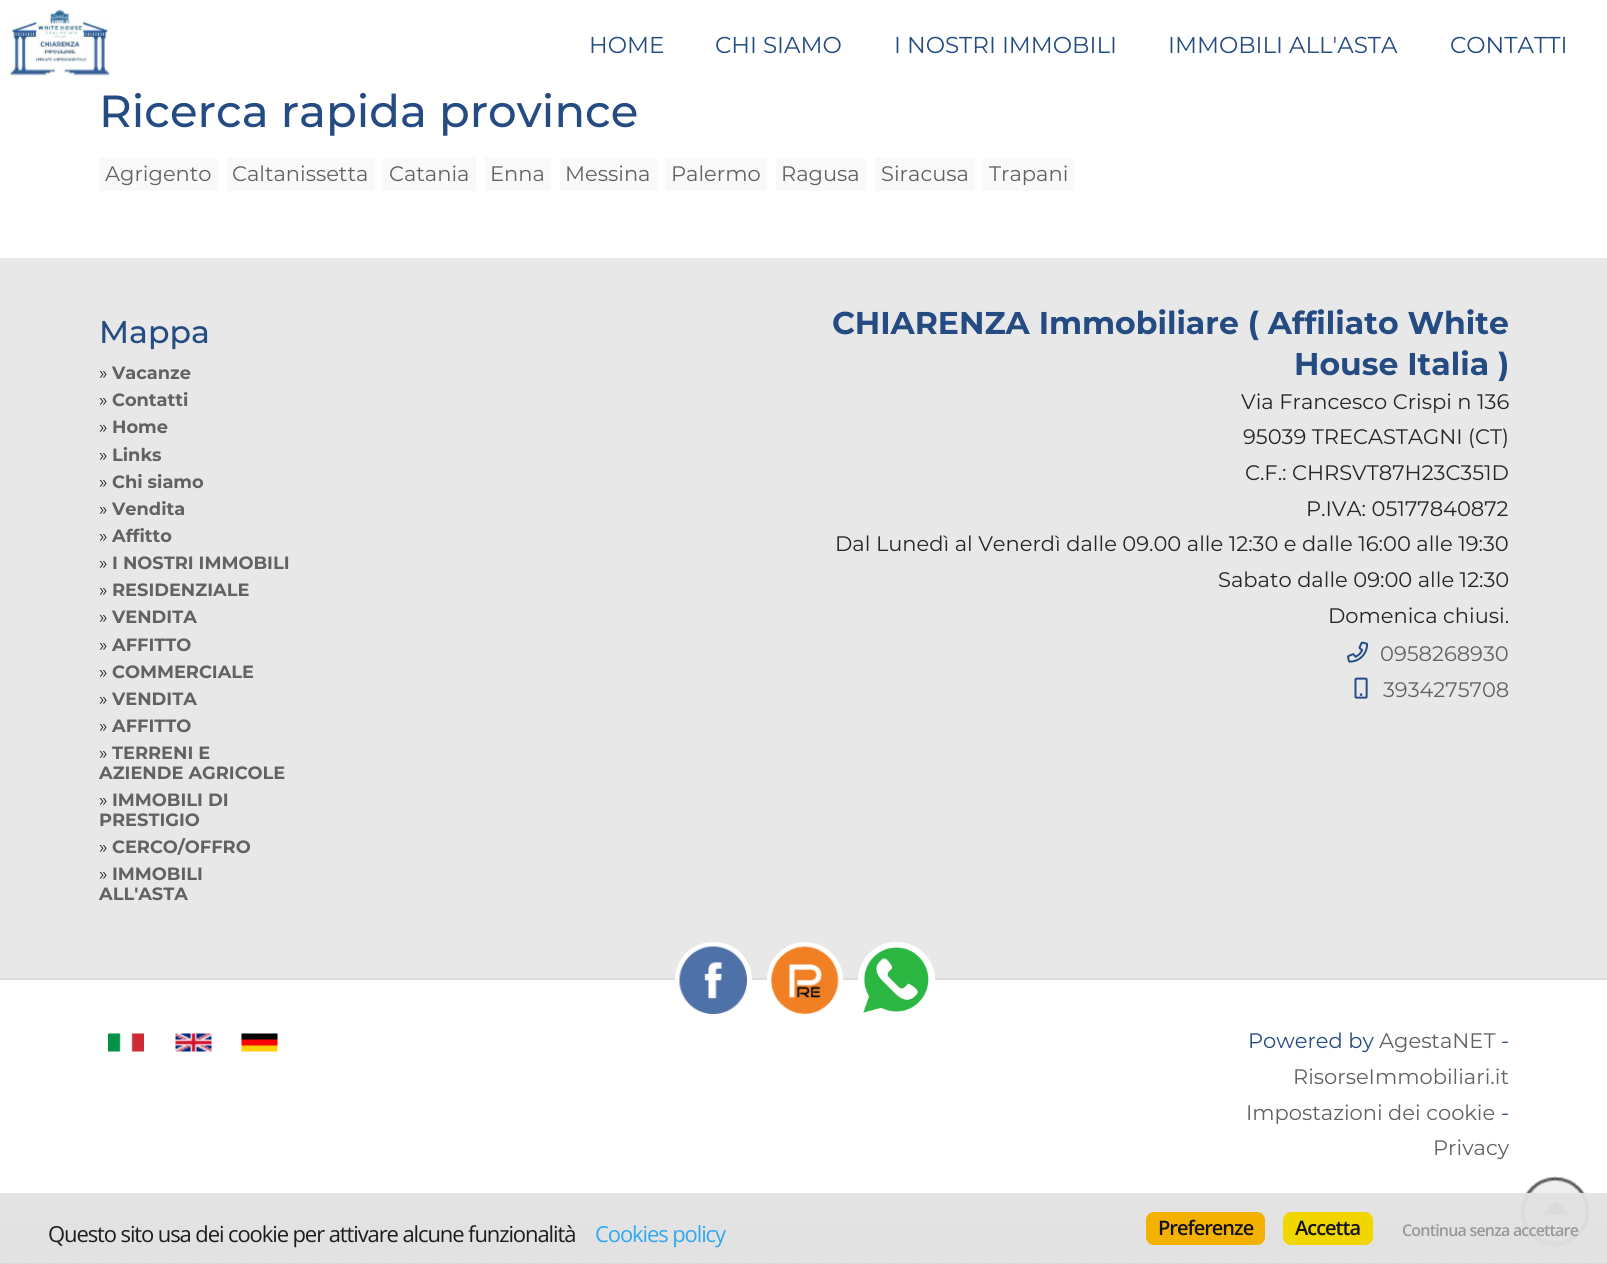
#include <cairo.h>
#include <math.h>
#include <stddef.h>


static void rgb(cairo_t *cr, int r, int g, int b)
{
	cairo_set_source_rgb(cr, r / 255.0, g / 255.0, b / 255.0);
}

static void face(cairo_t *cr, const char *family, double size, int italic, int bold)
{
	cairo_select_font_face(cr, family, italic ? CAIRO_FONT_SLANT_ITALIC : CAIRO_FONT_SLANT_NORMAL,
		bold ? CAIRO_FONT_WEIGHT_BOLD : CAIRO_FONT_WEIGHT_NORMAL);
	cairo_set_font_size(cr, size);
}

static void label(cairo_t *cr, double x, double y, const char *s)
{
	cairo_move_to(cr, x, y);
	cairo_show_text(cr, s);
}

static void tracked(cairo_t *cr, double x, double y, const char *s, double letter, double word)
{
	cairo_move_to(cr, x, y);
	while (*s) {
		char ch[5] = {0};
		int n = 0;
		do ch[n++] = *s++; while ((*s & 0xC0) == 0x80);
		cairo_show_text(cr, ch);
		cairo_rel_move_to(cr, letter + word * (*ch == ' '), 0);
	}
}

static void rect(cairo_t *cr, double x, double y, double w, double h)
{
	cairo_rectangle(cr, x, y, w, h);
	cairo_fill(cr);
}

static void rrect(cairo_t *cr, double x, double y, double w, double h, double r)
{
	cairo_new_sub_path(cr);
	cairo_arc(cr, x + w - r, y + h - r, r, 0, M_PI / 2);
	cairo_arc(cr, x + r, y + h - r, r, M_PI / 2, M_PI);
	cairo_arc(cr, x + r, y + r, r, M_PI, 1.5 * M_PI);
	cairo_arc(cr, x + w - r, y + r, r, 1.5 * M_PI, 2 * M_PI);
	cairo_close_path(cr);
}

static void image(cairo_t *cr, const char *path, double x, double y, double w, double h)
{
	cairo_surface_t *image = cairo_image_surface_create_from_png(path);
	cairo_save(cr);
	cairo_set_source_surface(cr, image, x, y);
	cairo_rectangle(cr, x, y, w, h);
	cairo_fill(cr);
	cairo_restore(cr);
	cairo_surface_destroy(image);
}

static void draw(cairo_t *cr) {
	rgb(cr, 255, 255, 255);
	cairo_paint(cr);
	image(cr, "image0.png", 9, 9, 101, 67);
	face(cr, "Montserrat", 23, 0, 0);
	rgb(cr, 36, 75, 130);
	label(cr, 589, 53, "HOME");
	label(cr, 715, 53, "CHI SIAMO");
	label(cr, 894, 53, "I NOSTRI IMMOBILI");
	label(cr, 1168, 53, "IMMOBILI ALL'ASTA");
	label(cr, 1450, 53, "CONTATTI");
	face(cr, "Montserrat Medium", 45, 0, 0);
	label(cr, 99, 127, "Ricerca rapida province");
	rgb(cr, 249, 249, 249);
	rect(cr, 99, 158, 119, 33);
	face(cr, "Montserrat", 21, 0, 0);
	rgb(cr, 98, 98, 98);
	label(cr, 105, 181, "Agrigento");
	rgb(cr, 249, 249, 249);
	rect(cr, 227, 158, 148, 33);
	rgb(cr, 98, 98, 98);
	label(cr, 232, 181, "Caltanissetta");
	rgb(cr, 249, 249, 249);
	rect(cr, 383, 158, 93, 33);
	rgb(cr, 98, 98, 98);
	label(cr, 389, 181, "Catania");
	rgb(cr, 249, 249, 249);
	rect(cr, 485, 158, 66, 33);
	rgb(cr, 98, 98, 98);
	label(cr, 490, 181, "Enna");
	rgb(cr, 249, 249, 249);
	rect(cr, 560, 158, 97, 33);
	rgb(cr, 98, 98, 98);
	label(cr, 565, 181, "Messina");
	rgb(cr, 249, 249, 249);
	rect(cr, 665, 158, 102, 33);
	rgb(cr, 98, 98, 98);
	label(cr, 671, 181, "Palermo");
	rgb(cr, 249, 249, 249);
	rect(cr, 776, 158, 90, 33);
	rgb(cr, 98, 98, 98);
	label(cr, 781, 181, "Ragusa");
	rgb(cr, 249, 249, 249);
	rect(cr, 875, 158, 100, 33);
	rgb(cr, 98, 98, 98);
	label(cr, 881, 181, "Siracusa");
	rgb(cr, 249, 249, 249);
	rect(cr, 983, 158, 91, 33);
	rgb(cr, 98, 98, 98);
	label(cr, 989, 181, "Trapani");
	rgb(cr, 232, 232, 232);
	rect(cr, 0, 258, 1607, 1006);
	face(cr, "Montserrat Medium", 31.5, 0, 0);
	rgb(cr, 36, 75, 130);
	label(cr, 99, 343, "Mappa");
	face(cr, "Montserrat", 17.8, 0, 0);
	rgb(cr, 38, 38, 38);
	label(cr, 99, 379, "»");
	face(cr, "Montserrat", 17.8, 0, 1);
	rgb(cr, 98, 98, 98);
	label(cr, 112, 379, "Vacanze");
	face(cr, "Montserrat", 17.8, 0, 0);
	rgb(cr, 38, 38, 38);
	label(cr, 99, 406, "»");
	face(cr, "Montserrat", 17.8, 0, 1);
	rgb(cr, 98, 98, 98);
	label(cr, 112, 406, "Contatti");
	face(cr, "Montserrat", 17.8, 0, 0);
	rgb(cr, 38, 38, 38);
	label(cr, 99, 433, "»");
	face(cr, "Montserrat", 17.8, 0, 1);
	rgb(cr, 98, 98, 98);
	label(cr, 112, 433, "Home");
	face(cr, "Montserrat", 17.8, 0, 0);
	rgb(cr, 38, 38, 38);
	label(cr, 99, 461, "»");
	face(cr, "Montserrat", 17.8, 0, 1);
	rgb(cr, 98, 98, 98);
	label(cr, 112, 461, "Links");
	face(cr, "Montserrat", 17.8, 0, 0);
	rgb(cr, 38, 38, 38);
	label(cr, 99, 488, "»");
	face(cr, "Montserrat", 17.8, 0, 1);
	rgb(cr, 98, 98, 98);
	label(cr, 112, 488, "Chi siamo");
	face(cr, "Montserrat", 17.8, 0, 0);
	rgb(cr, 38, 38, 38);
	label(cr, 99, 515, "»");
	face(cr, "Montserrat", 17.8, 0, 1);
	rgb(cr, 98, 98, 98);
	label(cr, 112, 515, "Vendita");
	face(cr, "Montserrat", 17.8, 0, 0);
	rgb(cr, 38, 38, 38);
	label(cr, 99, 542, "»");
	face(cr, "Montserrat", 17.8, 0, 1);
	rgb(cr, 98, 98, 98);
	label(cr, 112, 542, "Affitto");
	face(cr, "Montserrat", 17.8, 0, 0);
	rgb(cr, 38, 38, 38);
	label(cr, 99, 569, "»");
	face(cr, "Montserrat", 17.8, 0, 1);
	rgb(cr, 98, 98, 98);
	label(cr, 112, 569, "I NOSTRI IMMOBILI");
	face(cr, "Montserrat", 17.8, 0, 0);
	rgb(cr, 38, 38, 38);
	label(cr, 99, 596, "»");
	face(cr, "Montserrat", 17.8, 0, 1);
	rgb(cr, 98, 98, 98);
	label(cr, 112, 596, "RESIDENZIALE");
	face(cr, "Montserrat", 17.8, 0, 0);
	rgb(cr, 38, 38, 38);
	label(cr, 99, 623, "»");
	face(cr, "Montserrat", 17.8, 0, 1);
	rgb(cr, 98, 98, 98);
	label(cr, 112, 623, "VENDITA");
	face(cr, "Montserrat", 17.8, 0, 0);
	rgb(cr, 38, 38, 38);
	label(cr, 99, 651, "»");
	face(cr, "Montserrat", 17.8, 0, 1);
	rgb(cr, 98, 98, 98);
	label(cr, 112, 651, "AFFITTO");
	face(cr, "Montserrat", 17.8, 0, 0);
	rgb(cr, 38, 38, 38);
	label(cr, 99, 678, "»");
	face(cr, "Montserrat", 17.8, 0, 1);
	rgb(cr, 98, 98, 98);
	label(cr, 112, 678, "COMMERCIALE");
	face(cr, "Montserrat", 17.8, 0, 0);
	rgb(cr, 38, 38, 38);
	label(cr, 99, 705, "»");
	face(cr, "Montserrat", 17.8, 0, 1);
	rgb(cr, 98, 98, 98);
	label(cr, 112, 705, "VENDITA");
	face(cr, "Montserrat", 17.8, 0, 0);
	rgb(cr, 38, 38, 38);
	label(cr, 99, 732, "»");
	face(cr, "Montserrat", 17.8, 0, 1);
	rgb(cr, 98, 98, 98);
	label(cr, 112, 732, "AFFITTO");
	face(cr, "Montserrat", 17.8, 0, 0);
	rgb(cr, 38, 38, 38);
	label(cr, 99, 759, "»");
	face(cr, "Montserrat", 17.8, 0, 1);
	rgb(cr, 98, 98, 98);
	label(cr, 112, 759, "TERRENI E");
	label(cr, 99, 779, "AZIENDE AGRICOLE");
	face(cr, "Montserrat", 17.8, 0, 0);
	rgb(cr, 38, 38, 38);
	label(cr, 99, 806, "»");
	face(cr, "Montserrat", 17.8, 0, 1);
	rgb(cr, 98, 98, 98);
	label(cr, 112, 806, "IMMOBILI DI");
	label(cr, 99, 826, "PRESTIGIO");
	face(cr, "Montserrat", 17.8, 0, 0);
	rgb(cr, 38, 38, 38);
	label(cr, 99, 853, "»");
	face(cr, "Montserrat", 17.8, 0, 1);
	rgb(cr, 98, 98, 98);
	label(cr, 112, 853, "CERCO/OFFRO");
	face(cr, "Montserrat", 17.8, 0, 0);
	rgb(cr, 38, 38, 38);
	label(cr, 99, 880, "»");
	face(cr, "Montserrat", 17.8, 0, 1);
	rgb(cr, 98, 98, 98);
	label(cr, 112, 880, "IMMOBILI");
	label(cr, 99, 900, "ALL'ASTA");
	face(cr, "Montserrat", 31.5, 0, 1);
	rgb(cr, 36, 75, 130);
	label(cr, 832, 334, "CHIARENZA Immobiliare ( Affiliato White");
	label(cr, 1294, 375, "House Italia )");
	face(cr, "Montserrat", 21, 0, 0);
	rgb(cr, 38, 38, 38);
	label(cr, 1241, 409, "Via Francesco Crispi n 136");
	label(cr, 1243, 444, "95039 TRECASTAGNI (CT)");
	label(cr, 1245, 480, "C.F.: CHRSVT87H23C351D");
	label(cr, 1306, 516, "P.IVA: 05177840872");
	label(cr, 835, 551, "Dal Lunedì al Venerdì dalle 09.00 alle 12:30 e dalle 16:00 alle 19:30");
	label(cr, 1218, 587, "Sabato dalle 09:00 alle 12:30");
	label(cr, 1328, 623, "Domenica chiusi.");
	image(cr, "image1.png", 1347, 641, 21, 22);
	rgb(cr, 98, 98, 98);
	label(cr, 1380, 661, "0958268930");
	image(cr, "image2.png", 1354, 677, 14, 22);
	label(cr, 1383, 697, "3934275708");
	rgb(cr, 255, 255, 255);
	rect(cr, 0, 980, 1607, 240);
	rgb(cr, 221, 221, 221);
	rect(cr, 0, 978, 1607, 2);
	rgb(cr, 255, 255, 255);
	rrect(cr, 675, 942, 77, 77, 38);
	cairo_fill(cr);
	image(cr, "image3.png", 679, 946, 68, 68);
	rrect(cr, 767, 942, 76, 77, 38);
	cairo_fill(cr);
	image(cr, "image4.png", 771, 946, 68, 68);
	rrect(cr, 858, 942, 77, 77, 38);
	cairo_fill(cr);
	image(cr, "image5.png", 863, 947, 66, 66);
	image(cr, "image6.png", 108, 1033, 36, 19);
	image(cr, "image7.png", 175, 1033, 37, 19);
	image(cr, "image8.png", 241, 1033, 37, 19);
	rgb(cr, 36, 75, 130);
	label(cr, 1248, 1048, "Powered by");
	rgb(cr, 98, 98, 98);
	label(cr, 1379, 1048, "AgestaNET");
	rgb(cr, 36, 75, 130);
	label(cr, 1501, 1048, "-");
	rgb(cr, 98, 98, 98);
	label(cr, 1293, 1084, "RisorseImmobiliari.it");
	label(cr, 1246, 1120, "Impostazioni dei cookie");
	rgb(cr, 36, 75, 130);
	label(cr, 1501, 1120, "-");
	rgb(cr, 98, 98, 98);
	label(cr, 1433, 1155, "Privacy");
	image(cr, "image9.png", 1520, 1177, 69, 70);
	image(cr, "image10.png", 1521, 1176, 69, 70);
	cairo_set_source_rgba(cr, 0.886, 0.886, 0.886, 0.95);
	rect(cr, 0, 1193, 1607, 71);
	cairo_new_path(cr);
	cairo_move_to(cr, 0, 1264);
	cairo_line_to(cr, 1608, 1264);
	rgb(cr, 204, 204, 204);
	cairo_set_line_width(cr, 1.5);
	cairo_set_dash(cr, (double[]){1.5, 1.5}, 2, 0);
	cairo_stroke(cr);
	face(cr, "Open Sans", 22, 0, 0);
	rgb(cr, 29, 29, 29);
	tracked(cr, 48, 1242, "Questo sito usa dei cookie per attivare alcune funzionalità", -1.1, 0);
	rgb(cr, 49, 168, 240);
	tracked(cr, 595, 1242, "Cookies policy", -1.1, 0);
	rgb(cr, 244, 177, 0);
	rrect(cr, 1146, 1212, 119, 33, 8);
	cairo_fill(cr);
	face(cr, "Open Sans SemiBold", 20, 0, 0);
	rgb(cr, 17, 17, 17);
	tracked(cr, 1158, 1235, "Preferenze", -1, 0);
	rgb(cr, 241, 214, 0);
	rrect(cr, 1283, 1212, 90, 33, 8);
	cairo_fill(cr);
	rgb(cr, 17, 17, 17);
	tracked(cr, 1295, 1235, "Accetta", -1, 0);
	face(cr, "Open Sans SemiBold", 16, 0, 0);
	rgb(cr, 153, 153, 153);
	tracked(cr, 1402, 1236, "Continua senza accettare", -0.8, 0);
}

int main(void) {
	cairo_surface_t *surface = cairo_image_surface_create(CAIRO_FORMAT_RGB24, 1607, 1264);
	cairo_t *cr = cairo_create(surface);
	cairo_font_options_t *options = cairo_font_options_create();
	cairo_font_options_set_hint_metrics(options, CAIRO_HINT_METRICS_OFF);
	cairo_font_options_set_hint_style(options, CAIRO_HINT_STYLE_NONE);
	cairo_set_font_options(cr, options);
	cairo_set_miter_limit(cr, 4);
	draw(cr);
	cairo_surface_write_to_png(surface, "render.png");
	cairo_font_options_destroy(options);
	cairo_destroy(cr);
	cairo_surface_destroy(surface);
	return 0;
}
